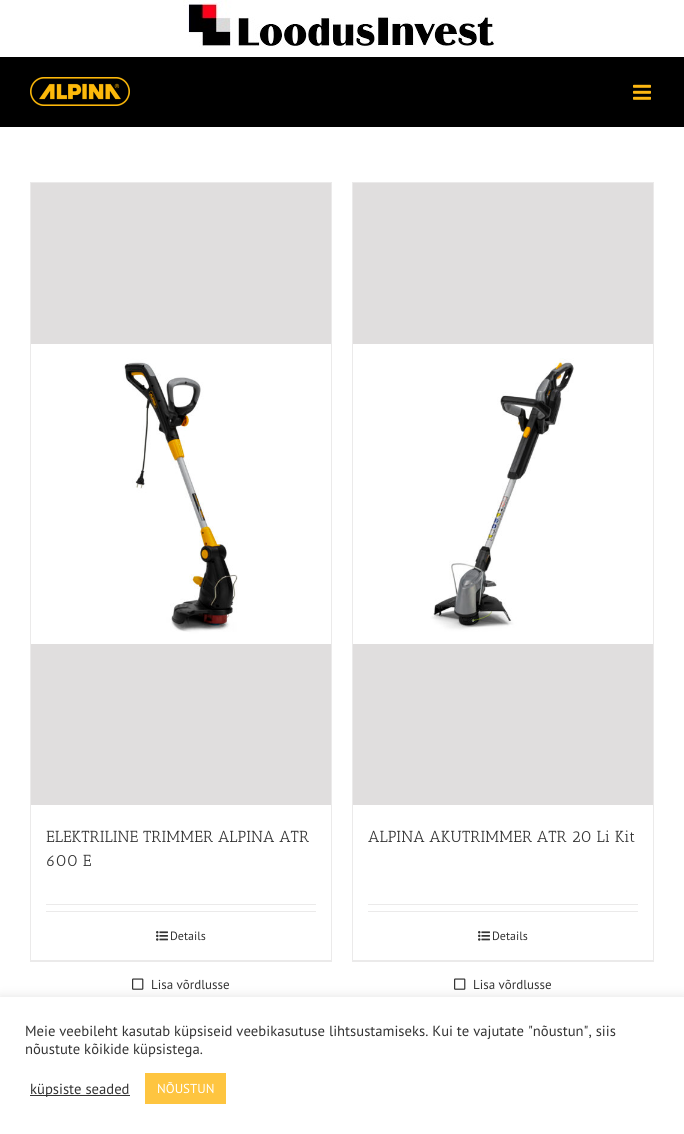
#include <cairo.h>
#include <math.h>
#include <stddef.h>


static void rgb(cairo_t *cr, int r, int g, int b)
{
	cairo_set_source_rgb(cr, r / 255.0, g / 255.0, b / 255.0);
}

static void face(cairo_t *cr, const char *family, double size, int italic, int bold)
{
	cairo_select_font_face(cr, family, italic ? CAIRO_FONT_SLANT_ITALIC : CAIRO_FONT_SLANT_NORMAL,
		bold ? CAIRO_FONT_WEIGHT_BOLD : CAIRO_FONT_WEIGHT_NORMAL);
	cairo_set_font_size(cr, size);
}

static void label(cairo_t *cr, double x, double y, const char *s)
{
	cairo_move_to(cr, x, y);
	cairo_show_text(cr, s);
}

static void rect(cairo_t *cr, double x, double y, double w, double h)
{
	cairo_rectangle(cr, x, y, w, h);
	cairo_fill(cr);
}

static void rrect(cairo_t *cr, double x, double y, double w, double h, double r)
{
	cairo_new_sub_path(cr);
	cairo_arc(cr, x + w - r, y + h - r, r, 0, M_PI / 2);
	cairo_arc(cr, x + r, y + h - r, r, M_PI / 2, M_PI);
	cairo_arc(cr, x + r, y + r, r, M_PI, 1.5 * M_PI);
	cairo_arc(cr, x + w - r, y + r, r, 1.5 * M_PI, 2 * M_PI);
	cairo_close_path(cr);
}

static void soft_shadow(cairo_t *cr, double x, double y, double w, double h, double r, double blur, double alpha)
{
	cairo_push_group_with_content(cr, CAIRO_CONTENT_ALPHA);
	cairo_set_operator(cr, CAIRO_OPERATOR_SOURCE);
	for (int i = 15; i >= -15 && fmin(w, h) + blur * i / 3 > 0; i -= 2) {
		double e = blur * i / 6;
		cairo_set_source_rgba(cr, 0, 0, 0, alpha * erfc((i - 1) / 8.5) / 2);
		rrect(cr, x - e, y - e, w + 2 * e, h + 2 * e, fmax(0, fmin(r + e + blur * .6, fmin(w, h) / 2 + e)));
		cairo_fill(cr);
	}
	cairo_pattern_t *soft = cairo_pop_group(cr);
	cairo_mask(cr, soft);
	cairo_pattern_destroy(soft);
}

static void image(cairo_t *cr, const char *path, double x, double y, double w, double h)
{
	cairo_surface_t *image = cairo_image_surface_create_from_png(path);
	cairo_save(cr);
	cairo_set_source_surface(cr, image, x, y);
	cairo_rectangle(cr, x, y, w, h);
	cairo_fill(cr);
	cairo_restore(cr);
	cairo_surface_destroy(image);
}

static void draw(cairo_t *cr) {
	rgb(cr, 255, 255, 255);
	cairo_paint(cr);
	image(cr, "image0.png", 183, 0, 311, 48);
	rgb(cr, 0, 0, 0);
	rect(cr, 0, 57, 684, 70);
	image(cr, "image1.png", 30, 77, 100, 29);
	image(cr, "image2.png", 633, 84, 18, 16);
	rgb(cr, 235, 234, 234);
	rect(cr, 30, 182, 302, 1);
	rect(cr, 331, 182, 1, 780);
	rect(cr, 30, 960, 302, 2);
	rect(cr, 30, 182, 1, 780);
	rgb(cr, 224, 222, 222);
	rect(cr, 31, 183, 300, 622);
	image(cr, "image3.png", 31, 344, 300, 300);
	face(cr, "Antic Slab", 16, 0, 0);
	rgb(cr, 51, 51, 51);
	label(cr, 46, 842, "ELEKTRILINE TRIMMER ALPINA ATR");
	label(cr, 46, 866, "600 E");
	rgb(cr, 235, 234, 234);
	rect(cr, 46, 904, 270, 1);
	rect(cr, 46, 911, 270, 1);
	image(cr, "image4.png", 156, 931, 12, 10);
	face(cr, "PT Sans", 12, 0, 0);
	rgb(cr, 51, 51, 51);
	label(cr, 170, 940, "Details");
	image(cr, "image5.png", 132, 978, 12, 12);
	face(cr, "PT Sans", 13, 0, 0);
	label(cr, 151, 989, "Lisa võrdlusse");
	rgb(cr, 235, 234, 234);
	rect(cr, 352, 182, 302, 1);
	rect(cr, 653, 182, 1, 780);
	rect(cr, 352, 960, 302, 2);
	rect(cr, 352, 182, 1, 780);
	rgb(cr, 224, 222, 222);
	rect(cr, 353, 183, 300, 622);
	image(cr, "image6.png", 353, 344, 300, 300);
	face(cr, "Antic Slab", 16, 0, 0);
	rgb(cr, 51, 51, 51);
	label(cr, 368, 842, "ALPINA AKUTRIMMER ATR 20 Li Kit");
	rgb(cr, 235, 234, 234);
	rect(cr, 368, 904, 270, 1);
	rect(cr, 368, 911, 270, 1);
	image(cr, "image4.png", 478, 931, 12, 10);
	face(cr, "PT Sans", 12, 0, 0);
	rgb(cr, 51, 51, 51);
	label(cr, 492, 940, "Details");
	image(cr, "image5.png", 454, 978, 12, 12);
	face(cr, "PT Sans", 13, 0, 0);
	label(cr, 473, 989, "Lisa võrdlusse");
	rgb(cr, 172, 171, 171);
	soft_shadow(cr, 0, 996, 684, 137, 0, 5, 0.3);
	rgb(cr, 255, 255, 255);
	rect(cr, 0, 997, 684, 137);
	face(cr, "PT Sans", 14.65, 0, 0);
	rgb(cr, 51, 51, 51);
	label(cr, 25, 1036, "Meie veebileht kasutab küpsiseid veebikasutuse lihtsustamiseks. Kui te vajutate \"nõustun\", siis");
	label(cr, 25, 1054, "nõustute kõikide küpsistega.");
	rect(cr, 30, 1095, 100, 1);
	label(cr, 30, 1094, "küpsiste seaded");
	rgb(cr, 254, 197, 64);
	rect(cr, 145, 1073, 81, 31);
	face(cr, "PT Sans", 13, 0, 0);
	rgb(cr, 255, 255, 255);
	label(cr, 157, 1093, "NÕUSTUN");
}

int main(void) {
	cairo_surface_t *surface = cairo_image_surface_create(CAIRO_FORMAT_RGB24, 684, 1134);
	cairo_t *cr = cairo_create(surface);
	cairo_font_options_t *options = cairo_font_options_create();
	cairo_font_options_set_hint_metrics(options, CAIRO_HINT_METRICS_OFF);
	cairo_font_options_set_hint_style(options, CAIRO_HINT_STYLE_NONE);
	cairo_set_font_options(cr, options);
	cairo_set_miter_limit(cr, 4);
	draw(cr);
	cairo_surface_write_to_png(surface, "render.png");
	cairo_font_options_destroy(options);
	cairo_destroy(cr);
	cairo_surface_destroy(surface);
	return 0;
}
